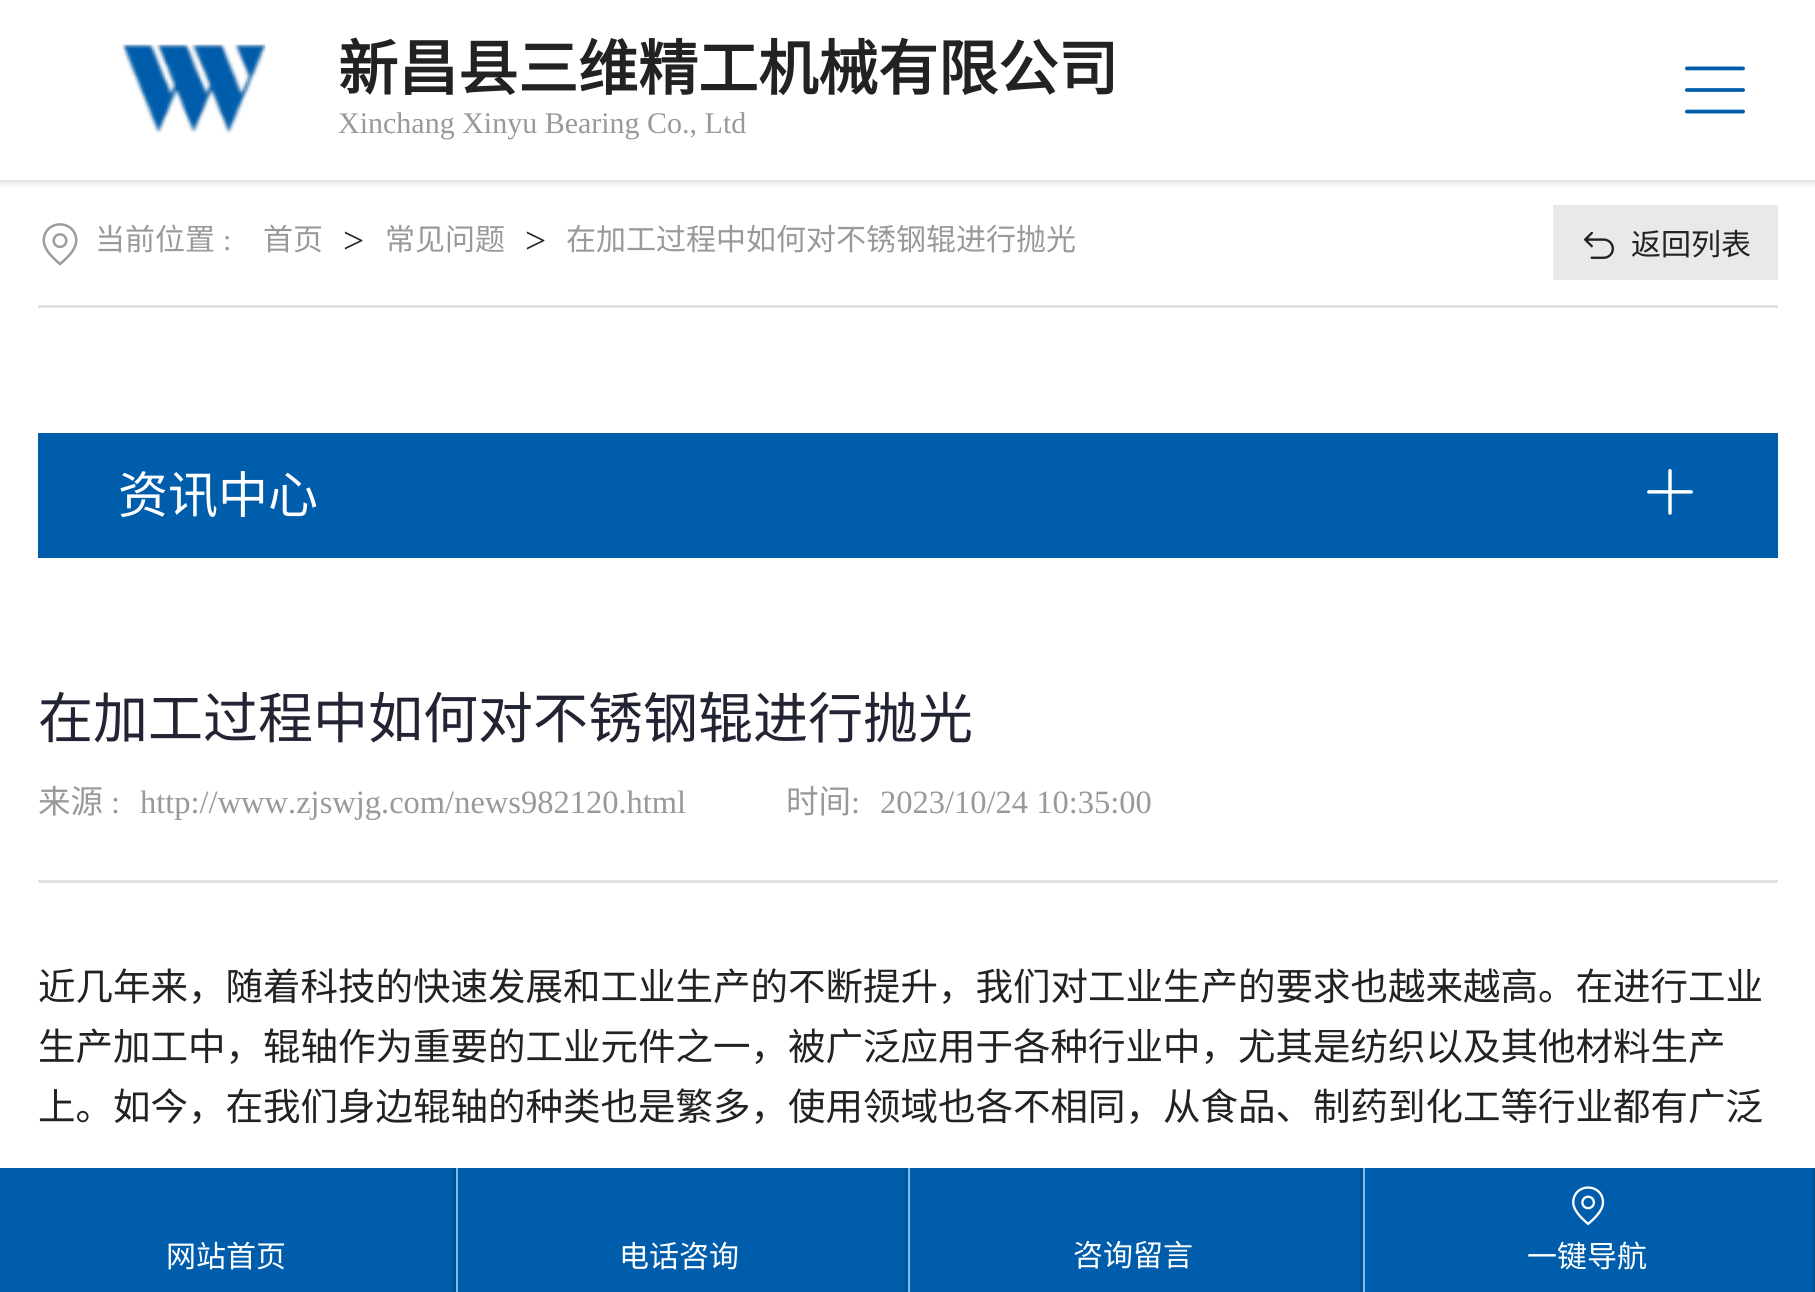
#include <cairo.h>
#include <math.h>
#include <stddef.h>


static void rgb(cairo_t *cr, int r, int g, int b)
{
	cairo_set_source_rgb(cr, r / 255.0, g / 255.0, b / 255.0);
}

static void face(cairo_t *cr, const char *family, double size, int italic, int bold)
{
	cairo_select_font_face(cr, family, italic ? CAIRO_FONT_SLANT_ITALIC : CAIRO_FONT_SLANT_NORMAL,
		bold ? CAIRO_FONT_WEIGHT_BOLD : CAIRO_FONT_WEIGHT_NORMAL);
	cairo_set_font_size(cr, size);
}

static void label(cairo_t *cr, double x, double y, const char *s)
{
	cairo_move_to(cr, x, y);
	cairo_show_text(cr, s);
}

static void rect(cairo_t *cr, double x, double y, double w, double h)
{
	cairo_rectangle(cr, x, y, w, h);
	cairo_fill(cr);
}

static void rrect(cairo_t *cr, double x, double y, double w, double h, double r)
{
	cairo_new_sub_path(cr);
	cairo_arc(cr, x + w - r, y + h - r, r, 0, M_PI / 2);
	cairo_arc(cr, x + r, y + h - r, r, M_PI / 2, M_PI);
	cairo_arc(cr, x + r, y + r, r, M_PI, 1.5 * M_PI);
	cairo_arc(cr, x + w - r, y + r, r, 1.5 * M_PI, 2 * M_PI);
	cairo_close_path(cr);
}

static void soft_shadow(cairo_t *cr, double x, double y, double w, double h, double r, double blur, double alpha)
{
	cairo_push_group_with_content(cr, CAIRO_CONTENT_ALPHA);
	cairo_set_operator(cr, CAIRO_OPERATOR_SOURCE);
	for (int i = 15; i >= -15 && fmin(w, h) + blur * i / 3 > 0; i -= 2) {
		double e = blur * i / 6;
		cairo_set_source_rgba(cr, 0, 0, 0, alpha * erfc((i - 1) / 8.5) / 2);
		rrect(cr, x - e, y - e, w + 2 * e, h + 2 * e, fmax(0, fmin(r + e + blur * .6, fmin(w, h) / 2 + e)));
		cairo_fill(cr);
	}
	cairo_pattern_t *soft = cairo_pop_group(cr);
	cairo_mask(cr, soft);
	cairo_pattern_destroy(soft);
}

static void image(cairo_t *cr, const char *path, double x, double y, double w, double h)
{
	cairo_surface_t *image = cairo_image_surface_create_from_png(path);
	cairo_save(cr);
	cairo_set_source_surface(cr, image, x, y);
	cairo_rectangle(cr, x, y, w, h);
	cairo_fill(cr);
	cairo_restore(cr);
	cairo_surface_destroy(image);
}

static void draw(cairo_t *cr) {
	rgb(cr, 255, 255, 255);
	cairo_paint(cr);
	cairo_save(cr);
	cairo_rectangle(cr, 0, 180, 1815, 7);
	cairo_clip(cr);
	rgb(cr, 0, 0, 0);
	soft_shadow(cr, 0, 0, 1815, 180, 0, 5, 0.25);
	cairo_restore(cr);
	image(cr, "image0.png", 122, 44, 144, 90);
	face(cr, "Noto Sans CJK SC", 60, 0, 1);
	rgb(cr, 34, 34, 34);
	label(cr, 338, 90, "新昌县三维精工机械有限公司");
	face(cr, "Liberation Serif", 30, 0, 0);
	rgb(cr, 153, 153, 153);
	label(cr, 338, 133, "Xinchang Xinyu Bearing Co., Ltd");
	image(cr, "image1.png", 1685, 66, 60, 48);
	rgb(cr, 225, 225, 225);
	rect(cr, 38, 305, 1740, 3);
	image(cr, "image2.png", 42, 223, 36, 43);
	face(cr, "Noto Sans CJK SC", 30, 0, 0);
	rgb(cr, 153, 153, 153);
	label(cr, 95, 250, "当前位置");
	face(cr, "Liberation Serif", 30, 0, 0);
	label(cr, 223, 250, ":");
	face(cr, "Noto Sans CJK SC", 30, 0, 0);
	label(cr, 263, 250, "首页");
	face(cr, "Liberation Serif", 37.5, 0, 0);
	rgb(cr, 34, 34, 34);
	label(cr, 343, 253, ">");
	face(cr, "Noto Sans CJK SC", 30, 0, 0);
	rgb(cr, 153, 153, 153);
	label(cr, 385, 250, "常见问题");
	face(cr, "Liberation Serif", 37.5, 0, 0);
	rgb(cr, 34, 34, 34);
	label(cr, 525, 253, ">");
	face(cr, "Noto Sans CJK SC", 30, 0, 0);
	rgb(cr, 153, 153, 153);
	label(cr, 566, 250, "在加工过程中如何对不锈钢辊进行抛光");
	rgb(cr, 233, 233, 233);
	rect(cr, 1553, 205, 225, 75);
	image(cr, "image3.png", 1584, 231, 30, 28);
	rgb(cr, 34, 34, 34);
	label(cr, 1631, 255, "返回列表");
	rgb(cr, 0, 93, 171);
	rect(cr, 38, 433, 1740, 125);
	face(cr, "Noto Sans CJK SC", 50, 0, 0);
	rgb(cr, 255, 255, 255);
	label(cr, 118, 513, "资讯中心");
	image(cr, "image4.png", 1647, 469, 46, 46);
	face(cr, "Noto Sans CJK SC", 55, 0, 0);
	rgb(cr, 34, 35, 51);
	label(cr, 38, 738, "在加工过程中如何对不锈钢辊进行抛光");
	rgb(cr, 225, 225, 225);
	rect(cr, 38, 880, 1740, 3);
	face(cr, "Noto Sans CJK SC", 32.5, 0, 0);
	rgb(cr, 153, 153, 153);
	label(cr, 38, 813, "来源");
	face(cr, "Liberation Serif", 32.5, 0, 0);
	label(cr, 111, 813, ":");
	label(cr, 140, 813, "http://www.zjswjg.com/news982120.html");
	face(cr, "Noto Sans CJK SC", 32.5, 0, 0);
	label(cr, 786, 813, "时间");
	face(cr, "Liberation Serif", 32.5, 0, 0);
	label(cr, 851, 813, ":");
	label(cr, 880, 813, "2023/10/24 10:35:00");
	face(cr, "Noto Sans CJK SC", 37.5, 0, 0);
	rgb(cr, 34, 34, 34);
	label(cr, 38, 1000, "近几年来，随着科技的快速发展和工业生产的不断提升，我们对工业生产的要求也越来越高。在进行工业");
	label(cr, 38, 1060, "生产加工中，辊轴作为重要的工业元件之一，被广泛应用于各种行业中，尤其是纺织以及其他材料生产");
	label(cr, 38, 1120, "上。如今，在我们身边辊轴的种类也是繁多，使用领域也各不相同，从食品、制药到化工等行业都有广泛");
	rgb(cr, 0, 93, 171);
	rect(cr, 0, 1168, 1813, 124);
	rgb(cr, 119, 188, 243);
	cairo_new_path(cr);
	cairo_move_to(cr, 3, 1292);
	cairo_line_to(cr, 3, 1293);
	cairo_line_to(cr, 458, 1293);
	cairo_line_to(cr, 458, 1168);
	cairo_line_to(cr, 455, 1168);
	cairo_line_to(cr, 455, 1292);
	cairo_close_path(cr);
	cairo_fill(cr);
	rgb(cr, 3, 81, 143);
	rect(cr, 453, 1168, 3, 124);
	face(cr, "Noto Sans CJK SC", 30, 0, 0);
	rgb(cr, 255, 255, 255);
	label(cr, 166, 1267, "网站首页");
	rgb(cr, 119, 188, 243);
	cairo_new_path(cr);
	cairo_move_to(cr, 458, 1292);
	cairo_line_to(cr, 458, 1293);
	cairo_line_to(cr, 910, 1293);
	cairo_line_to(cr, 910, 1168);
	cairo_line_to(cr, 908, 1168);
	cairo_line_to(cr, 908, 1292);
	cairo_close_path(cr);
	cairo_fill(cr);
	rgb(cr, 3, 81, 143);
	rect(cr, 905, 1168, 3, 124);
	rgb(cr, 255, 255, 255);
	label(cr, 619, 1267, "电话咨询");
	rgb(cr, 119, 188, 243);
	cairo_new_path(cr);
	cairo_move_to(cr, 910, 1292);
	cairo_line_to(cr, 910, 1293);
	cairo_line_to(cr, 1365, 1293);
	cairo_line_to(cr, 1365, 1168);
	cairo_line_to(cr, 1362, 1168);
	cairo_line_to(cr, 1362, 1292);
	cairo_close_path(cr);
	cairo_fill(cr);
	rgb(cr, 3, 81, 143);
	rect(cr, 1360, 1168, 3, 124);
	rgb(cr, 255, 255, 255);
	label(cr, 1073, 1266, "咨询留言");
	rgb(cr, 3, 81, 143);
	rect(cr, 1813, 1168, 2, 124);
	image(cr, "image5.png", 1572, 1186, 33, 40);
	rgb(cr, 255, 255, 255);
	label(cr, 1527, 1267, "一键导航");
}

int main(void) {
	cairo_surface_t *surface = cairo_image_surface_create(CAIRO_FORMAT_RGB24, 1815, 1292);
	cairo_t *cr = cairo_create(surface);
	cairo_font_options_t *options = cairo_font_options_create();
	cairo_font_options_set_hint_metrics(options, CAIRO_HINT_METRICS_OFF);
	cairo_font_options_set_hint_style(options, CAIRO_HINT_STYLE_NONE);
	cairo_set_font_options(cr, options);
	cairo_set_miter_limit(cr, 4);
	draw(cr);
	cairo_surface_write_to_png(surface, "render.png");
	cairo_font_options_destroy(options);
	cairo_destroy(cr);
	cairo_surface_destroy(surface);
	return 0;
}
